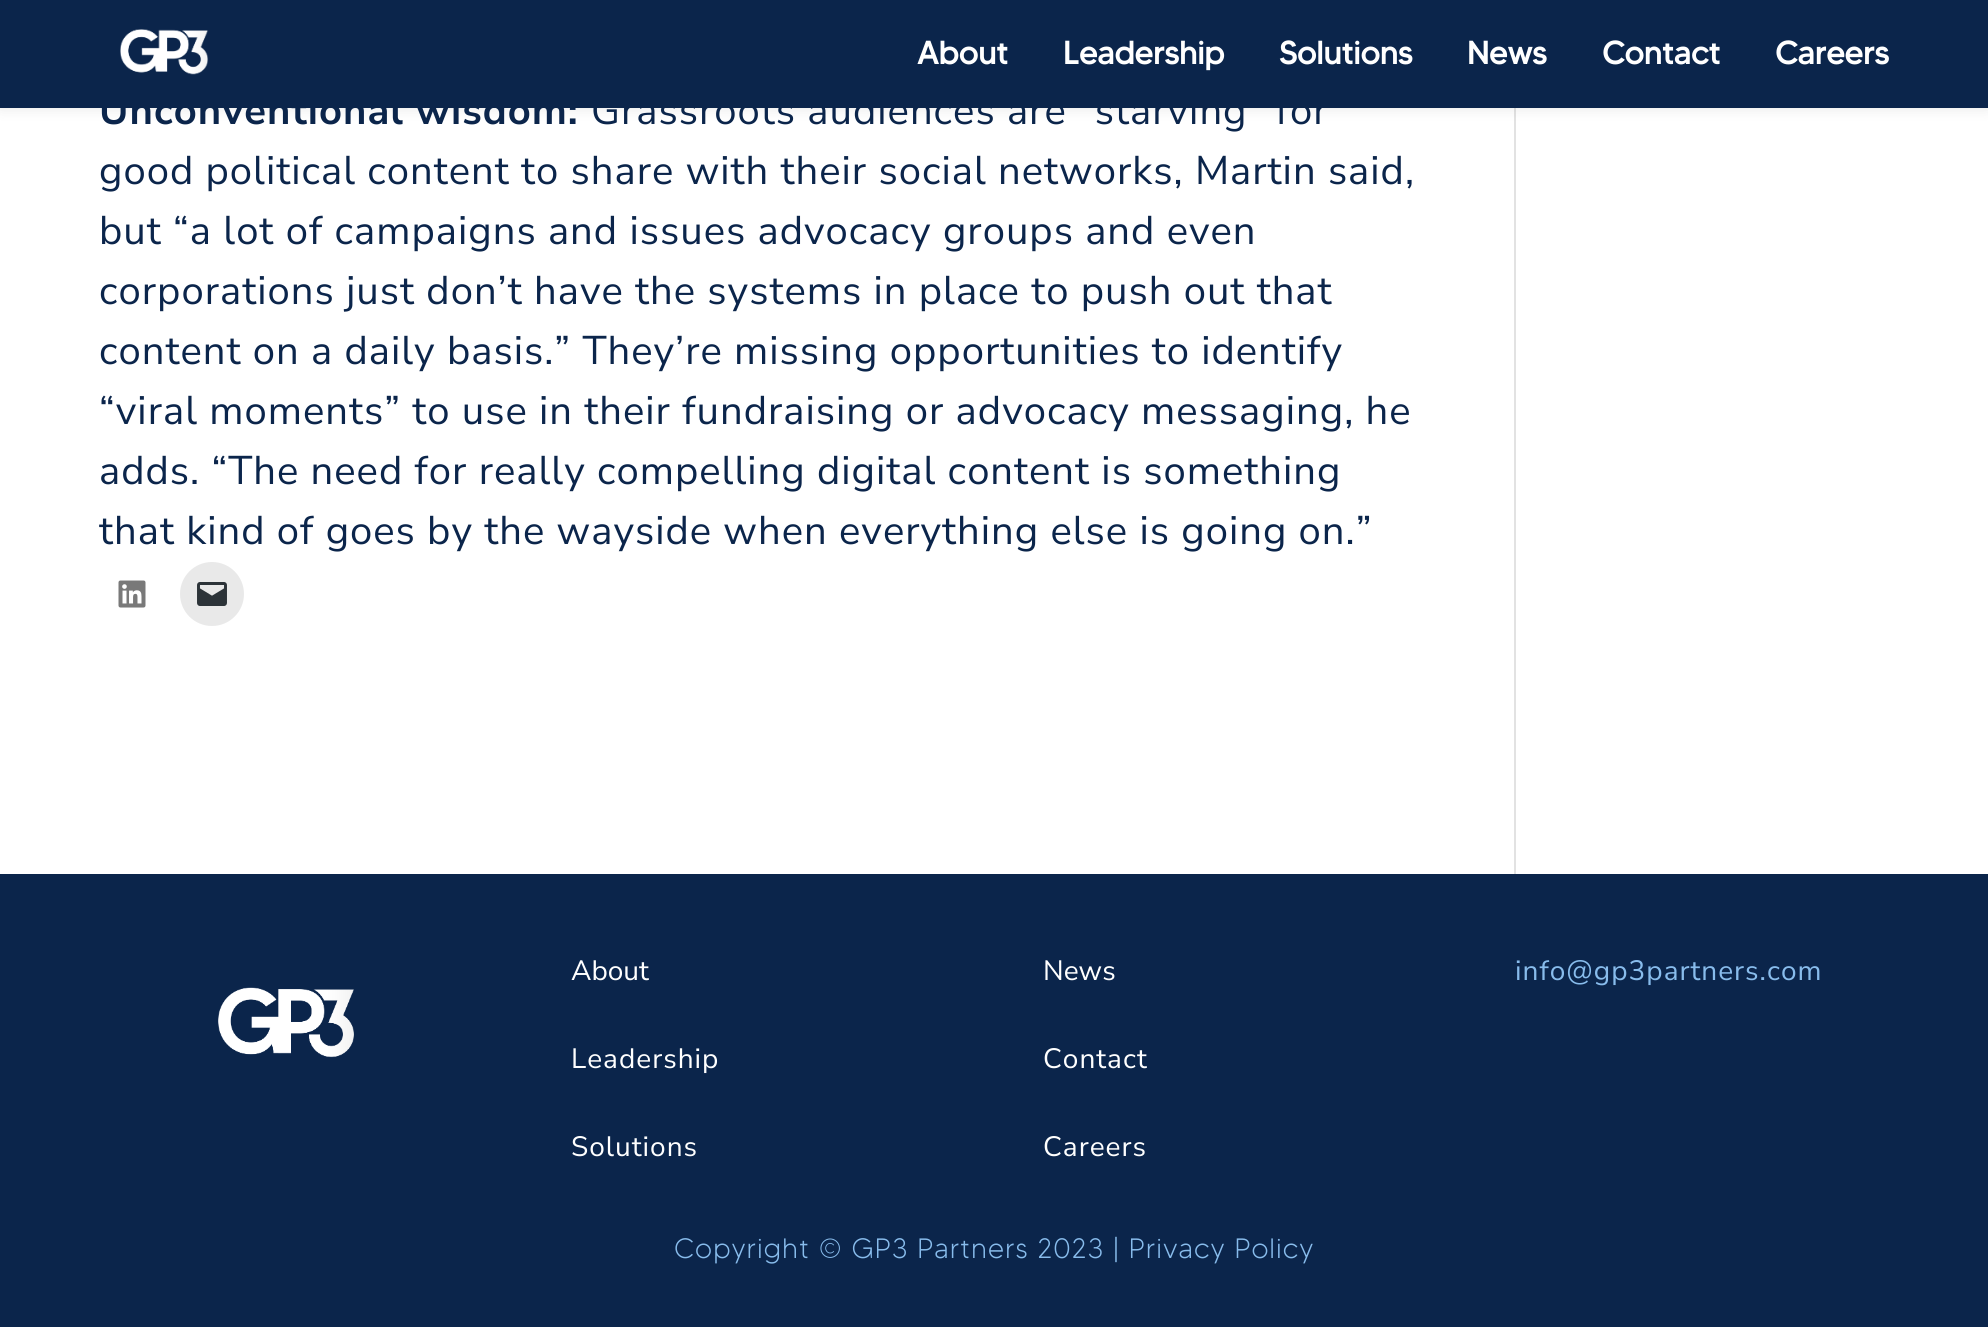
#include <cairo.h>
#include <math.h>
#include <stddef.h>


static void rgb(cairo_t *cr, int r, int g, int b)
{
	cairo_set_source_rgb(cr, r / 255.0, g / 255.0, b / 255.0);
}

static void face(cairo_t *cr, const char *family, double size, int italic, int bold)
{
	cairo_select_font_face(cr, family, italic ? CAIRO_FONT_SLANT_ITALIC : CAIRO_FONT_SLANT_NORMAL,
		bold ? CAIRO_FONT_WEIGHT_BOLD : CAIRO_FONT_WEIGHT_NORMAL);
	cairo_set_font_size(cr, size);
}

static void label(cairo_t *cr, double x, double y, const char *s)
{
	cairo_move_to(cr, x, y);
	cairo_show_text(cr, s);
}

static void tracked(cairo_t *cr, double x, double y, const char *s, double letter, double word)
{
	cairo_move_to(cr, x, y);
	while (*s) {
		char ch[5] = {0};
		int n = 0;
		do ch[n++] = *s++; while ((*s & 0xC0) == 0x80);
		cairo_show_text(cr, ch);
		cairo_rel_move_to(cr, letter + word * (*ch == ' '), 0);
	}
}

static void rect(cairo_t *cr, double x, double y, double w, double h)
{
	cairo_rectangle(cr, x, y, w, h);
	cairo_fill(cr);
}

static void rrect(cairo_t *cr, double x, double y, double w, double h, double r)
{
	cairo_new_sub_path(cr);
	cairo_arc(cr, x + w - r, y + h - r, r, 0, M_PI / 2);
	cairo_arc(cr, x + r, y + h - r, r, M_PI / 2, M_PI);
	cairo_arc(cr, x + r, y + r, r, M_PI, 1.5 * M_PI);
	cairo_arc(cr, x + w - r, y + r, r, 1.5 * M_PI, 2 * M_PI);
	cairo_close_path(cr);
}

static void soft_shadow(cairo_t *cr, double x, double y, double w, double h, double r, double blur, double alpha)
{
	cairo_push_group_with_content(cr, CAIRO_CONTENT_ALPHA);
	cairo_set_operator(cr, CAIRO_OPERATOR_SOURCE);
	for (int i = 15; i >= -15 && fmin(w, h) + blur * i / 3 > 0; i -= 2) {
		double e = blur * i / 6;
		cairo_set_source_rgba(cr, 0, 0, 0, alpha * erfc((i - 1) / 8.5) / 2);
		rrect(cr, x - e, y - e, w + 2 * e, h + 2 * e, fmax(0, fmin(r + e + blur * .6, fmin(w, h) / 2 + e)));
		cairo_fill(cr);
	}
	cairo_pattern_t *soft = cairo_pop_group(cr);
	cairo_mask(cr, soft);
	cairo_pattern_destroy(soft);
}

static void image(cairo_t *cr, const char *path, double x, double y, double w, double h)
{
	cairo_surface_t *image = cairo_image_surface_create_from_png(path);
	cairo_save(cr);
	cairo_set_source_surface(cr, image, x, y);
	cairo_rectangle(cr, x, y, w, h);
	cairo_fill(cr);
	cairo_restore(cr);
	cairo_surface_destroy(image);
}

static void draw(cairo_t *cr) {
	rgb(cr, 255, 255, 255);
	cairo_paint(cr);
	rgb(cr, 226, 226, 226);
	rect(cr, 1514, 108, 2, 766);
	rgb(cr, 0, 0, 0);
	soft_shadow(cr, 0, 0, 1988, 108, 0, 7, 0.1);
	rgb(cr, 11, 37, 75);
	rect(cr, 0, 0, 1988, 108);
	image(cr, "image0.png", 120, 29, 89, 46);
	face(cr, "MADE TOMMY", 32, 0, 1);
	rgb(cr, 255, 255, 255);
	label(cr, 917, 64, "About");
	label(cr, 1063, 64, "Leadership");
	label(cr, 1279, 64, "Solutions");
	label(cr, 1467, 64, "News");
	label(cr, 1602, 64, "Contact");
	label(cr, 1775, 64, "Careers");
	face(cr, "Nunito Sans", 40, 0, 1);
	rgb(cr, 11, 37, 75);
	tracked(cr, 99, 124, "Unconventional wisdom:", 1, 0);
	face(cr, "Nunito Sans", 40, 0, 0);
	tracked(cr, 591, 124, "Grassroots audiences are “starving” for", 1, 0);
	tracked(cr, 99, 184, "good political content to share with their social networks, Martin said,", 1, 0);
	tracked(cr, 99, 244, "but “a lot of campaigns and issues advocacy groups and even", 1, 0);
	tracked(cr, 99, 304, "corporations just don’t have the systems in place to push out that", 1, 0);
	tracked(cr, 99, 364, "content on a daily basis.” They’re missing opportunities to identify", 1, 0);
	tracked(cr, 99, 424, "“viral moments” to use in their fundraising or advocacy messaging, he", 1, 0);
	tracked(cr, 99, 484, "adds. “The need for really compelling digital content is something", 1, 0);
	tracked(cr, 99, 544, "that kind of goes by the wayside when everything else is going on.”", 1, 0);
	image(cr, "image1.png", 118, 580, 28, 28);
	rgb(cr, 233, 233, 233);
	cairo_arc(cr, 212, 594, 32, 0, 2 * M_PI);
	cairo_fill(cr);
	image(cr, "image2.png", 197, 582, 30, 24);
	rgb(cr, 11, 37, 75);
	rect(cr, 0, 874, 1988, 453);
	face(cr, "Nunito Sans", 28, 0, 0);
	rgb(cr, 255, 255, 255);
	label(cr, 571, 980, "About");
	tracked(cr, 571, 1068, "Leadership", 1, 0);
	tracked(cr, 571, 1156, "Solutions", 1, 0);
	label(cr, 1043, 980, "News");
	tracked(cr, 1043, 1068, "Contact", 1, 0);
	tracked(cr, 1043, 1156, "Careers", 1, 0);
	rgb(cr, 136, 188, 236);
	tracked(cr, 1515, 980, "info@gp3partners.com", 1, 0);
	image(cr, "image3.png", 218, 987, 136, 71);
	face(cr, "MADE TOMMY Light", 28, 0, 0);
	tracked(cr, 674, 1258, "Copyright © GP3 Partners 2023 | Privacy Policy", 1, 0);
}

int main(void) {
	cairo_surface_t *surface = cairo_image_surface_create(CAIRO_FORMAT_RGB24, 1988, 1327);
	cairo_t *cr = cairo_create(surface);
	cairo_font_options_t *options = cairo_font_options_create();
	cairo_font_options_set_hint_metrics(options, CAIRO_HINT_METRICS_OFF);
	cairo_font_options_set_hint_style(options, CAIRO_HINT_STYLE_NONE);
	cairo_set_font_options(cr, options);
	cairo_set_miter_limit(cr, 4);
	draw(cr);
	cairo_surface_write_to_png(surface, "render.png");
	cairo_font_options_destroy(options);
	cairo_destroy(cr);
	cairo_surface_destroy(surface);
	return 0;
}
